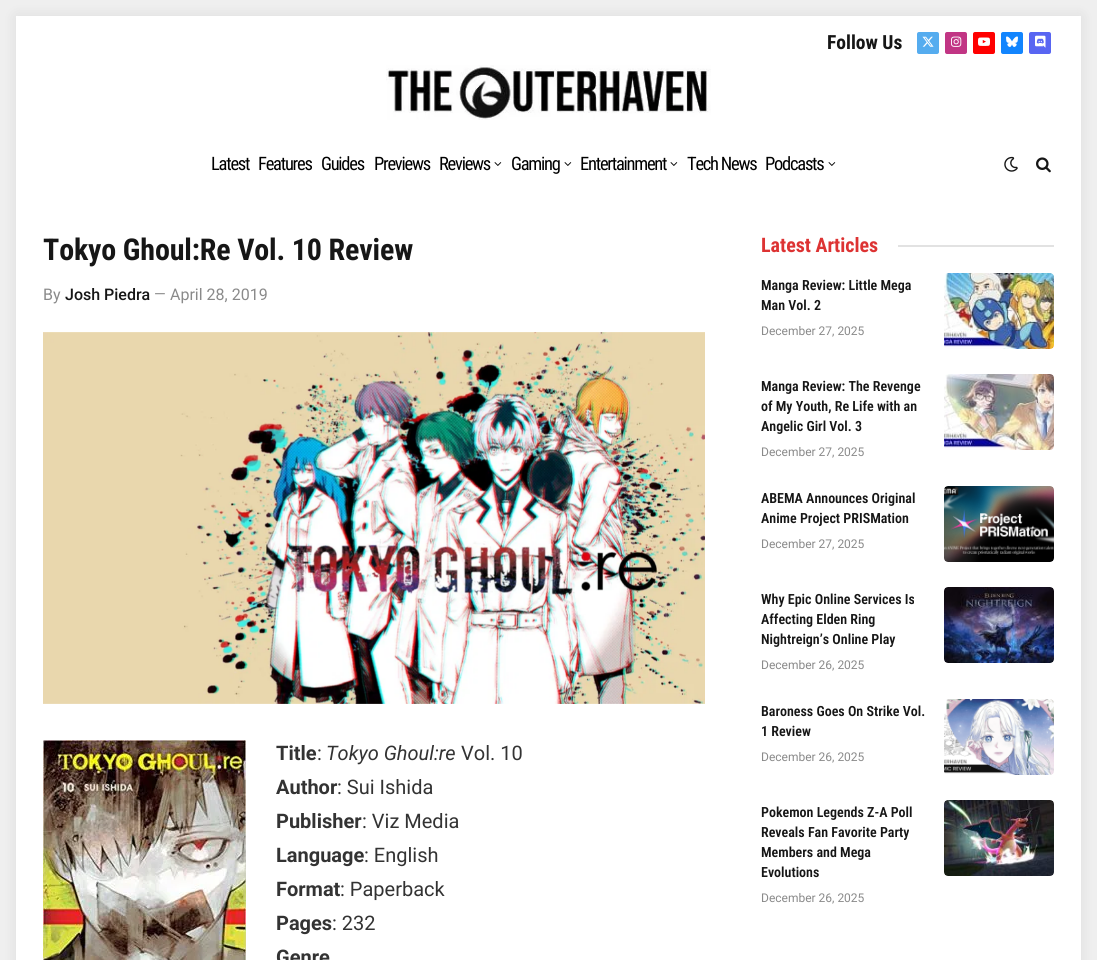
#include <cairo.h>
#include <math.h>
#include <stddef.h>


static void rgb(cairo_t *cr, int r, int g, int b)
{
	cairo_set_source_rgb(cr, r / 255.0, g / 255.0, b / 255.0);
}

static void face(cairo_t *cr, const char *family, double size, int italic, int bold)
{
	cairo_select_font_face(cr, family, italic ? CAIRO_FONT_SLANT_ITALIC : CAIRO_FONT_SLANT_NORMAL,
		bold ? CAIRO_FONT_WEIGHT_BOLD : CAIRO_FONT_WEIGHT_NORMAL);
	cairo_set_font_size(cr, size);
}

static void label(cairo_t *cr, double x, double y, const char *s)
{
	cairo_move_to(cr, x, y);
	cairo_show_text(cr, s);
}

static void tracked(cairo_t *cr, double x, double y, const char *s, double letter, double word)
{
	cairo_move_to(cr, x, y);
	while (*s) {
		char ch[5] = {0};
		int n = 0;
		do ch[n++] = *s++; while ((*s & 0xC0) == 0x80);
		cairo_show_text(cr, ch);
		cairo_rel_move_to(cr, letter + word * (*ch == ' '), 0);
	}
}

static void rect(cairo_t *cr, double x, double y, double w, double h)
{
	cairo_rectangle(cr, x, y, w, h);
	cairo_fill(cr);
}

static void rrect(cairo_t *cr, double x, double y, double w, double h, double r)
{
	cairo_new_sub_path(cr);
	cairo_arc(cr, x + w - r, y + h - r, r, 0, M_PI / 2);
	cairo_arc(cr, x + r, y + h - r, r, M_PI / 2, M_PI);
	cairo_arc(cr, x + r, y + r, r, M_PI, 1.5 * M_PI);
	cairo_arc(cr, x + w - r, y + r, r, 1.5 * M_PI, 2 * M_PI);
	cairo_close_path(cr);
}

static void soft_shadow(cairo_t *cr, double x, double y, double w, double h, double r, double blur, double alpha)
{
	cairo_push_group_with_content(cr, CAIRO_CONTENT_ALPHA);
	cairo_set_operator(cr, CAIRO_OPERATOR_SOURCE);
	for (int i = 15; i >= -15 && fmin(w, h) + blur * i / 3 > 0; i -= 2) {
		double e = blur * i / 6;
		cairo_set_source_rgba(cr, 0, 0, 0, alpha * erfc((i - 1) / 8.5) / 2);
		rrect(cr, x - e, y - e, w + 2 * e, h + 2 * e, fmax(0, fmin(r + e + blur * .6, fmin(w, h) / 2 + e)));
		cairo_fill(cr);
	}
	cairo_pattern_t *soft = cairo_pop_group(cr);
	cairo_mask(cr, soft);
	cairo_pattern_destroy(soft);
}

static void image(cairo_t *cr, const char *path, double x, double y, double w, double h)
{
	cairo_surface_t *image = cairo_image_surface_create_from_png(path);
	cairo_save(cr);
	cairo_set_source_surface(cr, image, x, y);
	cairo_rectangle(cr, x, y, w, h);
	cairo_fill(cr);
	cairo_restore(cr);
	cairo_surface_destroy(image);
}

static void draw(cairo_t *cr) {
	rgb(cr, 239, 239, 239);
	cairo_paint(cr);
	rgb(cr, 0, 0, 0);
	soft_shadow(cr, 16, 16, 1065, 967, 0, 7.5, 0.08);
	rgb(cr, 255, 255, 255);
	rect(cr, 16, 16, 1065, 944);
	face(cr, "Roboto Condensed", 19.5, 0, 1);
	rgb(cr, 22, 22, 22);
	label(cr, 827, 49, "Follow Us");
	rgb(cr, 85, 172, 239);
	rrect(cr, 917, 32, 22, 22, 2);
	cairo_fill(cr);
	image(cr, "image0.png", 922, 36, 12, 11);
	rgb(cr, 193, 53, 132);
	rrect(cr, 945, 32, 22, 22, 2);
	cairo_fill(cr);
	image(cr, "image1.png", 951, 36, 11, 11);
	rgb(cr, 255, 0, 0);
	rrect(cr, 973, 32, 22, 22, 2);
	cairo_fill(cr);
	image(cr, "image2.png", 978, 37, 12, 9);
	rgb(cr, 18, 133, 254);
	rrect(cr, 1001, 32, 22, 22, 2);
	cairo_fill(cr);
	image(cr, "image3.png", 1006, 36, 12, 11);
	rgb(cr, 88, 101, 242);
	rrect(cr, 1029, 32, 22, 22, 2);
	cairo_fill(cr);
	image(cr, "image4.png", 1035, 35, 11, 13);
	image(cr, "image5.png", 386, 65, 325, 55);
	face(cr, "Roboto Condensed", 18.5, 0, 0);
	rgb(cr, 0, 0, 0);
	tracked(cr, 211, 170, "Latest", -1.25, 0);
	tracked(cr, 258, 170, "Features", -1.25, 0);
	tracked(cr, 321, 170, "Guides", -1.25, 0);
	tracked(cr, 374, 170, "Previews", -1.25, 0);
	tracked(cr, 439, 170, "Reviews", -1.25, 0);
	image(cr, "image6.png", 494, 162, 8, 4);
	tracked(cr, 511, 170, "Gaming", -1.25, 0);
	image(cr, "image6.png", 564, 162, 8, 4);
	tracked(cr, 580, 170, "Entertainment", -1.25, 0);
	image(cr, "image6.png", 670, 162, 8, 4);
	tracked(cr, 687, 170, "Tech News", -1.25, 0);
	tracked(cr, 765, 170, "Podcasts", -1.25, 0);
	image(cr, "image6.png", 828, 162, 8, 4);
	image(cr, "image7.png", 1004, 156, 14, 16);
	image(cr, "image8.png", 1036, 157, 15, 16);
	face(cr, "Roboto Condensed", 30, 0, 1);
	rgb(cr, 22, 22, 22);
	tracked(cr, 43, 260, "Tokyo Ghoul:Re Vol. 10 Review", -0.15, 0);
	face(cr, "Roboto", 16, 0, 0);
	rgb(cr, 138, 138, 138);
	label(cr, 43, 300, "By");
	face(cr, "Roboto Medium", 16, 0, 0);
	rgb(cr, 22, 22, 22);
	label(cr, 65, 300, "Josh Piedra");
	face(cr, "Roboto", 15, 0, 0);
	rgb(cr, 138, 138, 138);
	label(cr, 154, 299, "—");
	face(cr, "Roboto", 16, 0, 0);
	label(cr, 170, 300, "April 28, 2019");
	image(cr, "image9.png", 43, 332, 662, 372);
	image(cr, "image10.png", 43, 740, 203, 220);
	face(cr, "Roboto", 20, 0, 1);
	rgb(cr, 51, 51, 51);
	label(cr, 276, 760, "Title");
	face(cr, "Roboto", 20, 0, 0);
	label(cr, 317, 760, ":");
	face(cr, "Roboto", 20, 1, 0);
	label(cr, 326, 760, "Tokyo Ghoul:re");
	face(cr, "Roboto", 20, 0, 0);
	label(cr, 461, 760, "Vol. 10");
	face(cr, "Roboto", 20, 0, 1);
	label(cr, 276, 794, "Author");
	face(cr, "Roboto", 20, 0, 0);
	label(cr, 337, 794, ": Sui Ishida");
	face(cr, "Roboto", 20, 0, 1);
	label(cr, 276, 828, "Publisher");
	face(cr, "Roboto", 20, 0, 0);
	label(cr, 362, 828, ": Viz Media");
	face(cr, "Roboto", 20, 0, 1);
	label(cr, 276, 862, "Language");
	face(cr, "Roboto", 20, 0, 0);
	label(cr, 364, 862, ": English");
	face(cr, "Roboto", 20, 0, 1);
	label(cr, 276, 896, "Format");
	face(cr, "Roboto", 20, 0, 0);
	label(cr, 340, 896, ": Paperback");
	face(cr, "Roboto", 20, 0, 1);
	label(cr, 276, 930, "Pages");
	face(cr, "Roboto", 20, 0, 0);
	label(cr, 332, 930, ": 232");
	face(cr, "Roboto", 20, 0, 1);
	label(cr, 276, 964, "Genre");
	face(cr, "Roboto Condensed", 20, 0, 1);
	rgb(cr, 221, 51, 51);
	label(cr, 761, 252, "Latest Articles");
	rgb(cr, 226, 226, 226);
	rect(cr, 898, 245, 156, 2);
	face(cr, "Roboto Condensed SemiBold", 14, 0, 0);
	rgb(cr, 22, 22, 22);
	label(cr, 761, 290, "Manga Review: Little Mega");
	label(cr, 761, 310, "Man Vol. 2");
	face(cr, "Roboto", 12, 0, 0);
	rgb(cr, 138, 138, 138);
	label(cr, 761, 335, "December 27, 2025");
	image(cr, "image11.png", 944, 273, 110, 76);
	face(cr, "Roboto Condensed SemiBold", 14, 0, 0);
	rgb(cr, 22, 22, 22);
	label(cr, 761, 391, "Manga Review: The Revenge");
	label(cr, 761, 411, "of My Youth, Re Life with an");
	label(cr, 761, 431, "Angelic Girl Vol. 3");
	face(cr, "Roboto", 12, 0, 0);
	rgb(cr, 138, 138, 138);
	label(cr, 761, 456, "December 27, 2025");
	image(cr, "image12.png", 944, 374, 110, 76);
	face(cr, "Roboto Condensed SemiBold", 14, 0, 0);
	rgb(cr, 22, 22, 22);
	label(cr, 761, 503, "ABEMA Announces Original");
	label(cr, 761, 523, "Anime Project PRISMation");
	face(cr, "Roboto", 12, 0, 0);
	rgb(cr, 138, 138, 138);
	label(cr, 761, 548, "December 27, 2025");
	image(cr, "image13.png", 944, 486, 110, 76);
	face(cr, "Roboto Condensed SemiBold", 14, 0, 0);
	rgb(cr, 22, 22, 22);
	label(cr, 761, 604, "Why Epic Online Services Is");
	label(cr, 761, 624, "Affecting Elden Ring");
	label(cr, 761, 644, "Nightreign’s Online Play");
	face(cr, "Roboto", 12, 0, 0);
	rgb(cr, 138, 138, 138);
	label(cr, 761, 669, "December 26, 2025");
	image(cr, "image14.png", 944, 587, 110, 76);
	face(cr, "Roboto Condensed SemiBold", 14, 0, 0);
	rgb(cr, 22, 22, 22);
	label(cr, 761, 716, "Baroness Goes On Strike Vol.");
	label(cr, 761, 736, "1 Review");
	face(cr, "Roboto", 12, 0, 0);
	rgb(cr, 138, 138, 138);
	label(cr, 761, 761, "December 26, 2025");
	image(cr, "image15.png", 944, 699, 110, 76);
	face(cr, "Roboto Condensed SemiBold", 14, 0, 0);
	rgb(cr, 22, 22, 22);
	label(cr, 761, 817, "Pokemon Legends Z-A Poll");
	label(cr, 761, 837, "Reveals Fan Favorite Party");
	label(cr, 761, 857, "Members and Mega");
	label(cr, 761, 877, "Evolutions");
	face(cr, "Roboto", 12, 0, 0);
	rgb(cr, 138, 138, 138);
	label(cr, 761, 902, "December 26, 2025");
	image(cr, "image16.png", 944, 800, 110, 76);
}

int main(void) {
	cairo_surface_t *surface = cairo_image_surface_create(CAIRO_FORMAT_RGB24, 1097, 960);
	cairo_t *cr = cairo_create(surface);
	cairo_font_options_t *options = cairo_font_options_create();
	cairo_font_options_set_hint_metrics(options, CAIRO_HINT_METRICS_OFF);
	cairo_font_options_set_hint_style(options, CAIRO_HINT_STYLE_NONE);
	cairo_set_font_options(cr, options);
	cairo_set_miter_limit(cr, 4);
	draw(cr);
	cairo_surface_write_to_png(surface, "render.png");
	cairo_font_options_destroy(options);
	cairo_destroy(cr);
	cairo_surface_destroy(surface);
	return 0;
}
